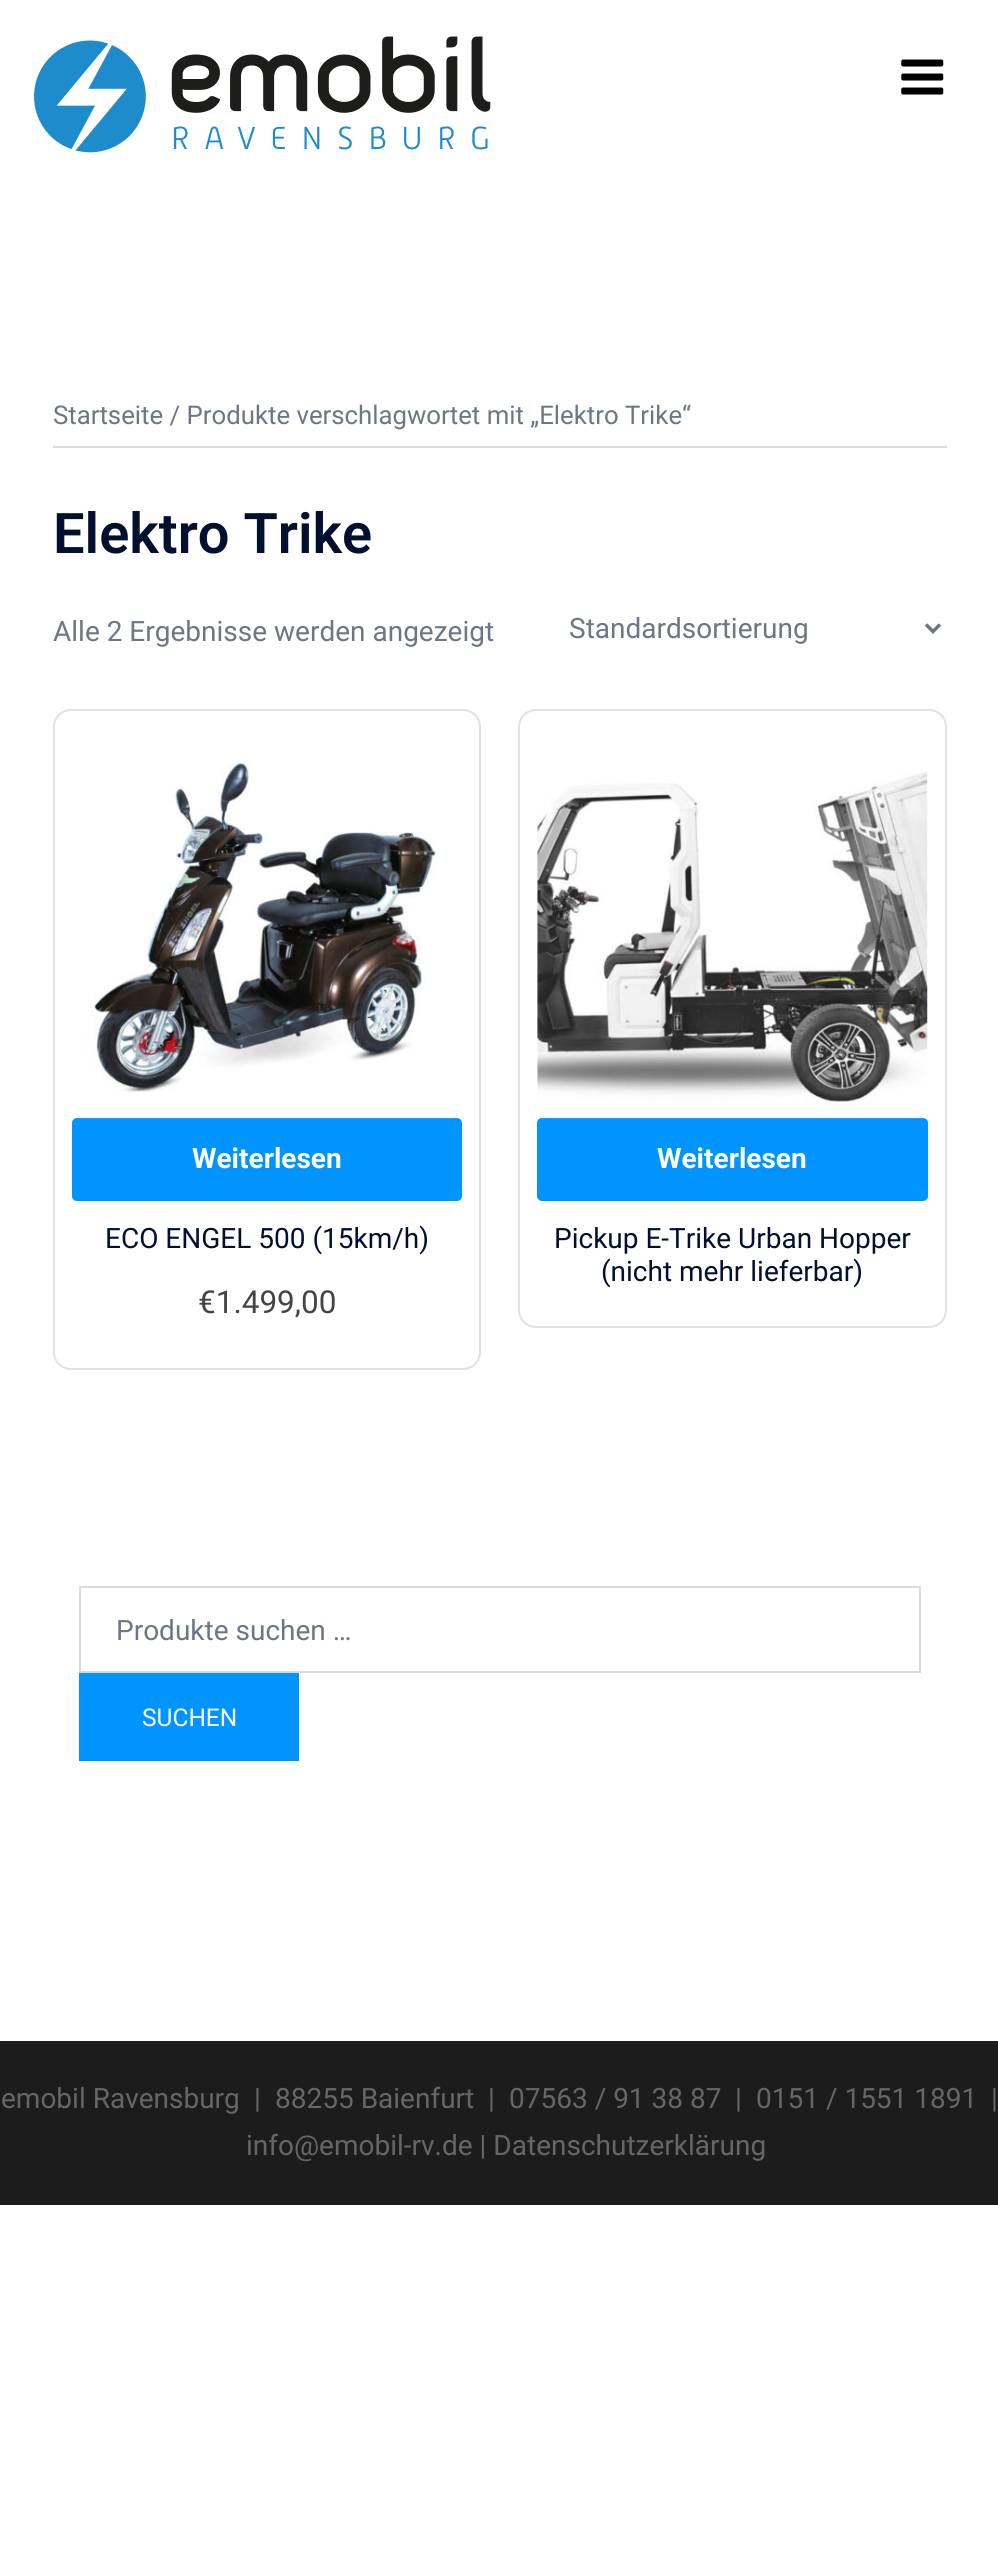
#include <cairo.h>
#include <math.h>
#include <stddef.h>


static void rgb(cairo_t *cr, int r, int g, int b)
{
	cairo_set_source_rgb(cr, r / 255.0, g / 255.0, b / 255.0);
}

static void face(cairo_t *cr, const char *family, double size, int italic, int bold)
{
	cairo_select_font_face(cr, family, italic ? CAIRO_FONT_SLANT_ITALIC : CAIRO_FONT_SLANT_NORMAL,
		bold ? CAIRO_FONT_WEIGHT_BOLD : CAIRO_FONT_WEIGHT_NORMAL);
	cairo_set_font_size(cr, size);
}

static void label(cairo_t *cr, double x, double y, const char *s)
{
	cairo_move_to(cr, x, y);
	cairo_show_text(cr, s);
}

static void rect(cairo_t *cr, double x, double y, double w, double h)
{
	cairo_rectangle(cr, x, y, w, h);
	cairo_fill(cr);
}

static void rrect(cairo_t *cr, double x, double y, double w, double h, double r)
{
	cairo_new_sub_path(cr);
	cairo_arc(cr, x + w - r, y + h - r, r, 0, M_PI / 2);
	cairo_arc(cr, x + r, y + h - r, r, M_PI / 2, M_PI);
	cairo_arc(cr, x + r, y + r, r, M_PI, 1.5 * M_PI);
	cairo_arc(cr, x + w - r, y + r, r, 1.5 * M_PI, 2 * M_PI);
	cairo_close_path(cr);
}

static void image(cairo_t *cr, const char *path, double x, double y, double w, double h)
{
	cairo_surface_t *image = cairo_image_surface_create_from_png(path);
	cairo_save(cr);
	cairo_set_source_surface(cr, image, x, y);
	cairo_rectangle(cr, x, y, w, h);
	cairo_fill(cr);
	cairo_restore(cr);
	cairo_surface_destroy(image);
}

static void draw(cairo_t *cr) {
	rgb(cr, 255, 255, 255);
	cairo_paint(cr);
	image(cr, "image0.png", 34, 36, 457, 117);
	image(cr, "image1.png", 901, 59, 43, 36);
	rgb(cr, 219, 219, 219);
	rect(cr, 53, 446, 894, 2);
	face(cr, "Roboto", 25.75, 0, 0);
	rgb(cr, 109, 118, 133);
	label(cr, 53, 424, "Startseite / Produkte verschlagwortet mit „Elektro Trike“");
	face(cr, "Roboto SemiBold", 56, 0, 0);
	rgb(cr, 0, 16, 46);
	label(cr, 53, 553, "Elektro Trike");
	face(cr, "Roboto", 28, 0, 0);
	rgb(cr, 109, 118, 133);
	label(cr, 53, 641, "Alle 2 Ergebnisse werden angezeigt");
	cairo_new_path(cr);
	cairo_move_to(cr, 926, 624.5);
	cairo_line_to(cr, 933, 631.5);
	cairo_line_to(cr, 940, 624.5);
	cairo_set_line_width(cr, 3.5);
	cairo_stroke(cr);
	label(cr, 569, 638, "Standardsortierung");
	rrect(cr, 54, 710, 426, 659, 17);
	rgb(cr, 225, 225, 225);
	cairo_set_line_width(cr, 2);
	cairo_stroke(cr);
	rgb(cr, 0, 148, 255);
	rrect(cr, 72, 1118, 390, 83, 5);
	cairo_fill(cr);
	image(cr, "image2.png", 74, 758, 386, 361);
	face(cr, "Roboto", 28, 0, 1);
	rgb(cr, 255, 255, 255);
	label(cr, 192, 1168, "Weiterlesen");
	face(cr, "Roboto", 28, 0, 0);
	rgb(cr, 0, 16, 46);
	label(cr, 105, 1248, "ECO ENGEL 500 (15km/h)");
	face(cr, "Roboto", 31.5, 0, 0);
	rgb(cr, 68, 68, 68);
	label(cr, 198, 1313, "€1.499,00");
	rrect(cr, 519, 710, 427, 617, 17);
	rgb(cr, 225, 225, 225);
	cairo_stroke(cr);
	rgb(cr, 0, 148, 255);
	rrect(cr, 537, 1118, 391, 83, 5);
	cairo_fill(cr);
	image(cr, "image3.png", 537, 771, 391, 348);
	face(cr, "Roboto", 28, 0, 1);
	rgb(cr, 255, 255, 255);
	label(cr, 657, 1168, "Weiterlesen");
	face(cr, "Roboto", 28, 0, 0);
	rgb(cr, 0, 16, 46);
	label(cr, 554, 1248, "Pickup E-Trike Urban Hopper");
	label(cr, 601, 1281, "(nicht mehr lieferbar)");
	cairo_rectangle(cr, 80, 1587, 840, 85);
	rgb(cr, 219, 219, 219);
	cairo_stroke(cr);
	rgb(cr, 109, 118, 133);
	label(cr, 116, 1640, "Produkte suchen …");
	rgb(cr, 0, 148, 255);
	rect(cr, 79, 1673, 220, 88);
	face(cr, "Roboto", 24.5, 0, 0);
	rgb(cr, 255, 255, 255);
	label(cr, 142, 1726, "SUCHEN");
	rgb(cr, 28, 28, 28);
	rect(cr, 0, 2041, 998, 164);
	face(cr, "Roboto", 28, 0, 0);
	rgb(cr, 102, 102, 102);
	label(cr, 1, 2108, "emobil Ravensburg");
	label(cr, 254, 2108, "|");
	label(cr, 275, 2108, "88255 Baienfurt");
	label(cr, 488, 2108, "|");
	label(cr, 509, 2108, "07563 / 91 38 87");
	label(cr, 735, 2108, "|");
	label(cr, 756, 2108, "0151 / 1551 1891");
	label(cr, 991, 2108, "|");
	label(cr, 246, 2155, "info@emobil-rv.de | Datenschutzerklärung");
}

int main(void) {
	cairo_surface_t *surface = cairo_image_surface_create(CAIRO_FORMAT_RGB24, 998, 2553);
	cairo_t *cr = cairo_create(surface);
	cairo_font_options_t *options = cairo_font_options_create();
	cairo_font_options_set_hint_metrics(options, CAIRO_HINT_METRICS_OFF);
	cairo_font_options_set_hint_style(options, CAIRO_HINT_STYLE_NONE);
	cairo_set_font_options(cr, options);
	cairo_set_miter_limit(cr, 4);
	draw(cr);
	cairo_surface_write_to_png(surface, "render.png");
	cairo_font_options_destroy(options);
	cairo_destroy(cr);
	cairo_surface_destroy(surface);
	return 0;
}
